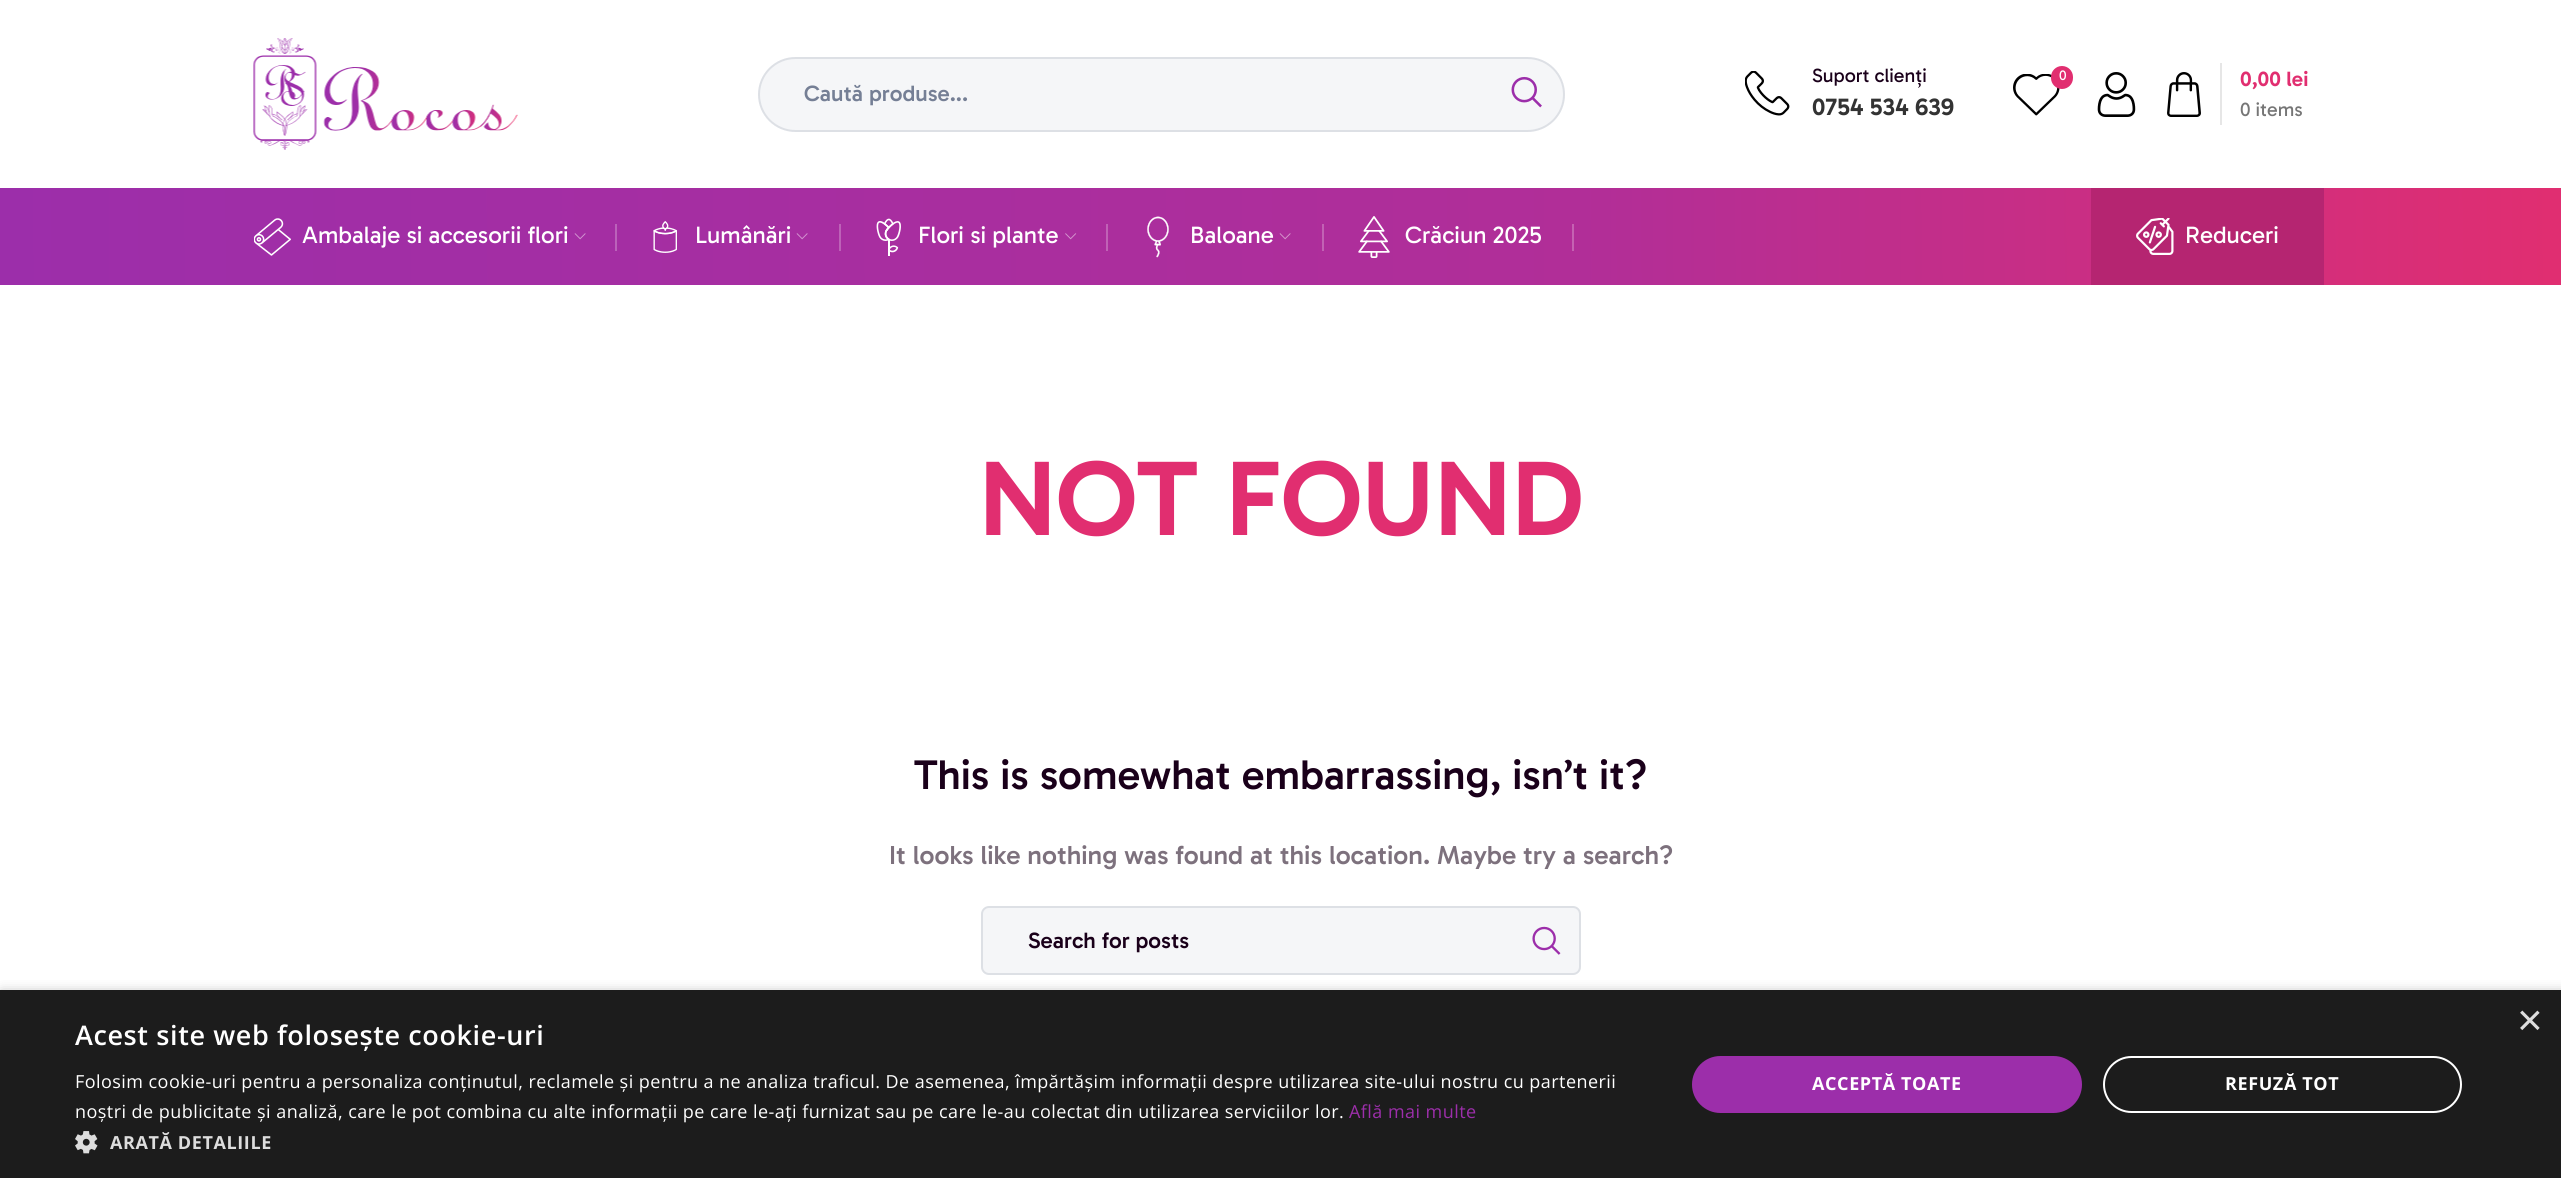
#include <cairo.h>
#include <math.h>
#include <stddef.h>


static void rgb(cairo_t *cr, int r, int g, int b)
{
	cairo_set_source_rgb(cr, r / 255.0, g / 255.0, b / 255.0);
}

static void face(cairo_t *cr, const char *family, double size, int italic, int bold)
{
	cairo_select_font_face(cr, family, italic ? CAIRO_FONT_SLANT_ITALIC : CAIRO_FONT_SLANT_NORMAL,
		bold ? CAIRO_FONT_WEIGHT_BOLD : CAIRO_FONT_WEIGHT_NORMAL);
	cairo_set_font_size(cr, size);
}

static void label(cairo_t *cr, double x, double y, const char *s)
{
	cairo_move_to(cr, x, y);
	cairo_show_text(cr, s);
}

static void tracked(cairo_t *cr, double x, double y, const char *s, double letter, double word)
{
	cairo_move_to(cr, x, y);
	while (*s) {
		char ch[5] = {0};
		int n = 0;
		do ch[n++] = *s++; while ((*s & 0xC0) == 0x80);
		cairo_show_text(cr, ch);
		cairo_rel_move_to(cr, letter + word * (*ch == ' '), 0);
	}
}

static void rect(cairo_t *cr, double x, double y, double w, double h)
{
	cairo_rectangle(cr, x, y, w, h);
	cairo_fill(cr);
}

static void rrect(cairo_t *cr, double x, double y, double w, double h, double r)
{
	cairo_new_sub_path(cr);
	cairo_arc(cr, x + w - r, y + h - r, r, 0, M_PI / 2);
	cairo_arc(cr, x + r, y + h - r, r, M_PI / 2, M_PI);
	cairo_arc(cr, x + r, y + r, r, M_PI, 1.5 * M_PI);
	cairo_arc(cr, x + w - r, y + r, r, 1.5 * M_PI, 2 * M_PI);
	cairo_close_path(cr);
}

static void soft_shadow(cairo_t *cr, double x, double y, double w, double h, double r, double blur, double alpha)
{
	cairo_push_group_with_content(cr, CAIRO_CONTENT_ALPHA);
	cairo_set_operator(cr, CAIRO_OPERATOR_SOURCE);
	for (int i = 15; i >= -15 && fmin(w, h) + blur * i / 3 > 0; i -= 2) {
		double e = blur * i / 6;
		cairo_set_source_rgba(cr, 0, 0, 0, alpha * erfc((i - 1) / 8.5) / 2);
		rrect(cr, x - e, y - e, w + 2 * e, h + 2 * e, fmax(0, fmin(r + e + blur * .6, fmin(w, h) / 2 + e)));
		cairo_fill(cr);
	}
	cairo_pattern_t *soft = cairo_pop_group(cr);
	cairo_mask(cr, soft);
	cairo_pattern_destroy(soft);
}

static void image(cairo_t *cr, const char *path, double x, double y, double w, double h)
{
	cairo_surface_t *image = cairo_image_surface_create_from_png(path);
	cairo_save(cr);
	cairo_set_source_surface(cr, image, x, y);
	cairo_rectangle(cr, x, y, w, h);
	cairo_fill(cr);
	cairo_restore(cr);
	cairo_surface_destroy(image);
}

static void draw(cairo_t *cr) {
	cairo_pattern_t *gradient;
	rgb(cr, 255, 255, 255);
	cairo_paint(cr);
	image(cr, "image0.png", 253, 38, 265, 112);
	rgb(cr, 245, 246, 248);
	rrect(cr, 758, 57, 807, 75, 37.5);
	cairo_fill(cr);
	rrect(cr, 759, 58, 805, 73, 36.5);
	cairo_set_source_rgba(cr, 0.459, 0.498, 0.584, 0.19);
	cairo_stroke(cr);
	face(cr, "Gabarito Medium", 22.5, 0, 0);
	rgb(cr, 117, 127, 149);
	label(cr, 804, 101, "Caută produse...");
	image(cr, "image1.png", 1511, 76, 31, 32);
	image(cr, "image2.png", 1745, 71, 45, 45);
	face(cr, "Gabarito", 19.5, 0, 0);
	rgb(cr, 26, 0, 26);
	label(cr, 1812, 82, "Suport clienți");
	face(cr, "Gabarito SemiBold", 24, 0, 0);
	rgb(cr, 51, 51, 51);
	label(cr, 1812, 115, "0754 534 639");
	image(cr, "image3.png", 2013, 74, 47, 42);
	rgb(cr, 225, 46, 112);
	rrect(cr, 2051, 66, 22, 23, 11);
	cairo_fill(cr);
	face(cr, "Gabarito", 14, 0, 0);
	rgb(cr, 255, 255, 255);
	label(cr, 2059, 80, "0");
	image(cr, "image4.png", 2097, 72, 39, 45);
	image(cr, "image5.png", 2167, 72, 34, 45);
	rgb(cr, 230, 230, 230);
	rect(cr, 2220, 63, 2, 62);
	face(cr, "Gabarito SemiBold", 21, 0, 0);
	rgb(cr, 225, 46, 112);
	label(cr, 2240, 86, "0,00 lei");
	face(cr, "Gabarito", 19.5, 0, 0);
	rgb(cr, 118, 118, 118);
	label(cr, 2240, 116, "0 items");
	gradient = cairo_pattern_create_linear(0, 236, 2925, 221);
	cairo_pattern_add_color_stop_rgba(gradient, 0, 0.612, 0.18, 0.667, 1);
	cairo_pattern_add_color_stop_rgba(gradient, 0.54, 0.694, 0.18, 0.596, 1);
	cairo_pattern_add_color_stop_rgba(gradient, 1, 0.949, 0.18, 0.384, 1);
	cairo_set_source(cr, gradient);
	cairo_pattern_destroy(gradient);
	rect(cr, 0, 188, 2561, 97);
	image(cr, "image6.png", 254, 218, 37, 38);
	face(cr, "Gabarito", 24, 0, 0);
	rgb(cr, 255, 255, 255);
	label(cr, 302, 243, "Ambalaje si accesorii flori");
	image(cr, "image7.png", 574, 233, 12, 7);
	rgb(cr, 187, 98, 186);
	rect(cr, 615, 224, 2, 27);
	image(cr, "image8.png", 653, 221, 24, 32);
	rgb(cr, 255, 255, 255);
	label(cr, 695, 243, "Lumânări");
	image(cr, "image9.png", 796, 233, 12, 7);
	rgb(cr, 189, 98, 184);
	rect(cr, 839, 224, 2, 27);
	image(cr, "image10.png", 876, 218, 25, 38);
	rgb(cr, 255, 255, 255);
	label(cr, 918, 243, "Flori si plante");
	image(cr, "image11.png", 1065, 233, 12, 7);
	rgb(cr, 192, 98, 182);
	rect(cr, 1106, 224, 2, 27);
	image(cr, "image12.png", 1147, 216, 22, 42);
	rgb(cr, 255, 255, 255);
	label(cr, 1190, 243, "Baloane");
	image(cr, "image13.png", 1279, 233, 12, 7);
	rgb(cr, 194, 98, 180);
	rect(cr, 1322, 224, 2, 27);
	image(cr, "image14.png", 1358, 216, 32, 42);
	rgb(cr, 255, 255, 255);
	label(cr, 1405, 243, "Crăciun 2025");
	rgb(cr, 197, 98, 178);
	rect(cr, 1572, 224, 2, 27);
	rgb(cr, 181, 37, 113);
	rect(cr, 2091, 188, 233, 97);
	image(cr, "image15.png", 2136, 218, 38, 37);
	rgb(cr, 255, 255, 255);
	label(cr, 2185, 243, "Reduceri");
	face(cr, "Gabarito SemiBold", 107.5, 0, 0);
	rgb(cr, 225, 46, 112);
	label(cr, 979, 535, "NOT FOUND");
	face(cr, "Gabarito Medium", 42, 0, 0);
	rgb(cr, 26, 0, 26);
	label(cr, 914, 789, "This is somewhat embarrassing, isn’t it?");
	face(cr, "Gabarito Medium", 26.4, 0, 0);
	rgb(cr, 125, 113, 125);
	label(cr, 889, 864, "It looks like nothing was found at this location. Maybe try a search?");
	rgb(cr, 245, 246, 248);
	rrect(cr, 981, 906, 600, 69, 8);
	cairo_fill(cr);
	rrect(cr, 982, 907, 598, 67, 7);
	cairo_set_source_rgba(cr, 0.459, 0.498, 0.584, 0.19);
	cairo_stroke(cr);
	face(cr, "Gabarito Medium", 22.5, 0, 0);
	rgb(cr, 26, 0, 26);
	label(cr, 1028, 948, "Search for posts");
	image(cr, "image16.png", 1532, 926, 29, 29);
	rgb(cr, 0, 0, 0);
	soft_shadow(cr, 2, 993, 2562, 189, 0, 6, 0.35);
	rgb(cr, 28, 28, 28);
	rect(cr, 0, 990, 2561, 188);
	face(cr, "Liberation Sans", 44, 0, 0);
	rgb(cr, 221, 221, 221);
	label(cr, 2517, 1035, "×");
	face(cr, "Open Sans SemiBold", 27, 0, 0);
	rgb(cr, 255, 255, 255);
	tracked(cr, 75, 1045, "Acest site web folosește cookie-uri", 0.6, 0);
	face(cr, "Open Sans", 18, 0, 0);
	tracked(cr, 75, 1088, "Folosim cookie-uri pentru a personaliza conținutul, reclamele și pentru a ne analiza traficul. De asemenea, împărtășim informații despre utilizarea site-ului nostru cu partenerii", 0.45, 0);
	tracked(cr, 75, 1118, "noștri de publicitate și analiză, care le pot combina cu alte informații pe care le-ați furnizat sau pe care le-au colectat din utilizarea serviciilor lor.", 0.45, 0);
	rgb(cr, 156, 46, 170);
	tracked(cr, 1349, 1118, "Află mai multe", 0.45, 0);
	image(cr, "image17.png", 75, 1131, 23, 23);
	face(cr, "Open Sans", 18, 0, 1);
	rgb(cr, 221, 221, 221);
	tracked(cr, 110, 1149, "ARATĂ DETALIILE", 0.6, 0);
	rgb(cr, 156, 46, 170);
	rrect(cr, 1692, 1056, 390, 57, 28.5);
	cairo_fill(cr);
	rgb(cr, 255, 255, 255);
	tracked(cr, 1812, 1090, "ACCEPTĂ TOATE", 0.6, 0);
	rrect(cr, 2104, 1057, 357, 55, 27.5);
	cairo_stroke(cr);
	tracked(cr, 2225, 1090, "REFUZĂ TOT", 0.6, 0);
}

int main(void) {
	cairo_surface_t *surface = cairo_image_surface_create(CAIRO_FORMAT_RGB24, 2561, 1178);
	cairo_t *cr = cairo_create(surface);
	cairo_font_options_t *options = cairo_font_options_create();
	cairo_font_options_set_hint_metrics(options, CAIRO_HINT_METRICS_OFF);
	cairo_font_options_set_hint_style(options, CAIRO_HINT_STYLE_NONE);
	cairo_set_font_options(cr, options);
	cairo_set_miter_limit(cr, 4);
	draw(cr);
	cairo_surface_write_to_png(surface, "render.png");
	cairo_font_options_destroy(options);
	cairo_destroy(cr);
	cairo_surface_destroy(surface);
	return 0;
}
